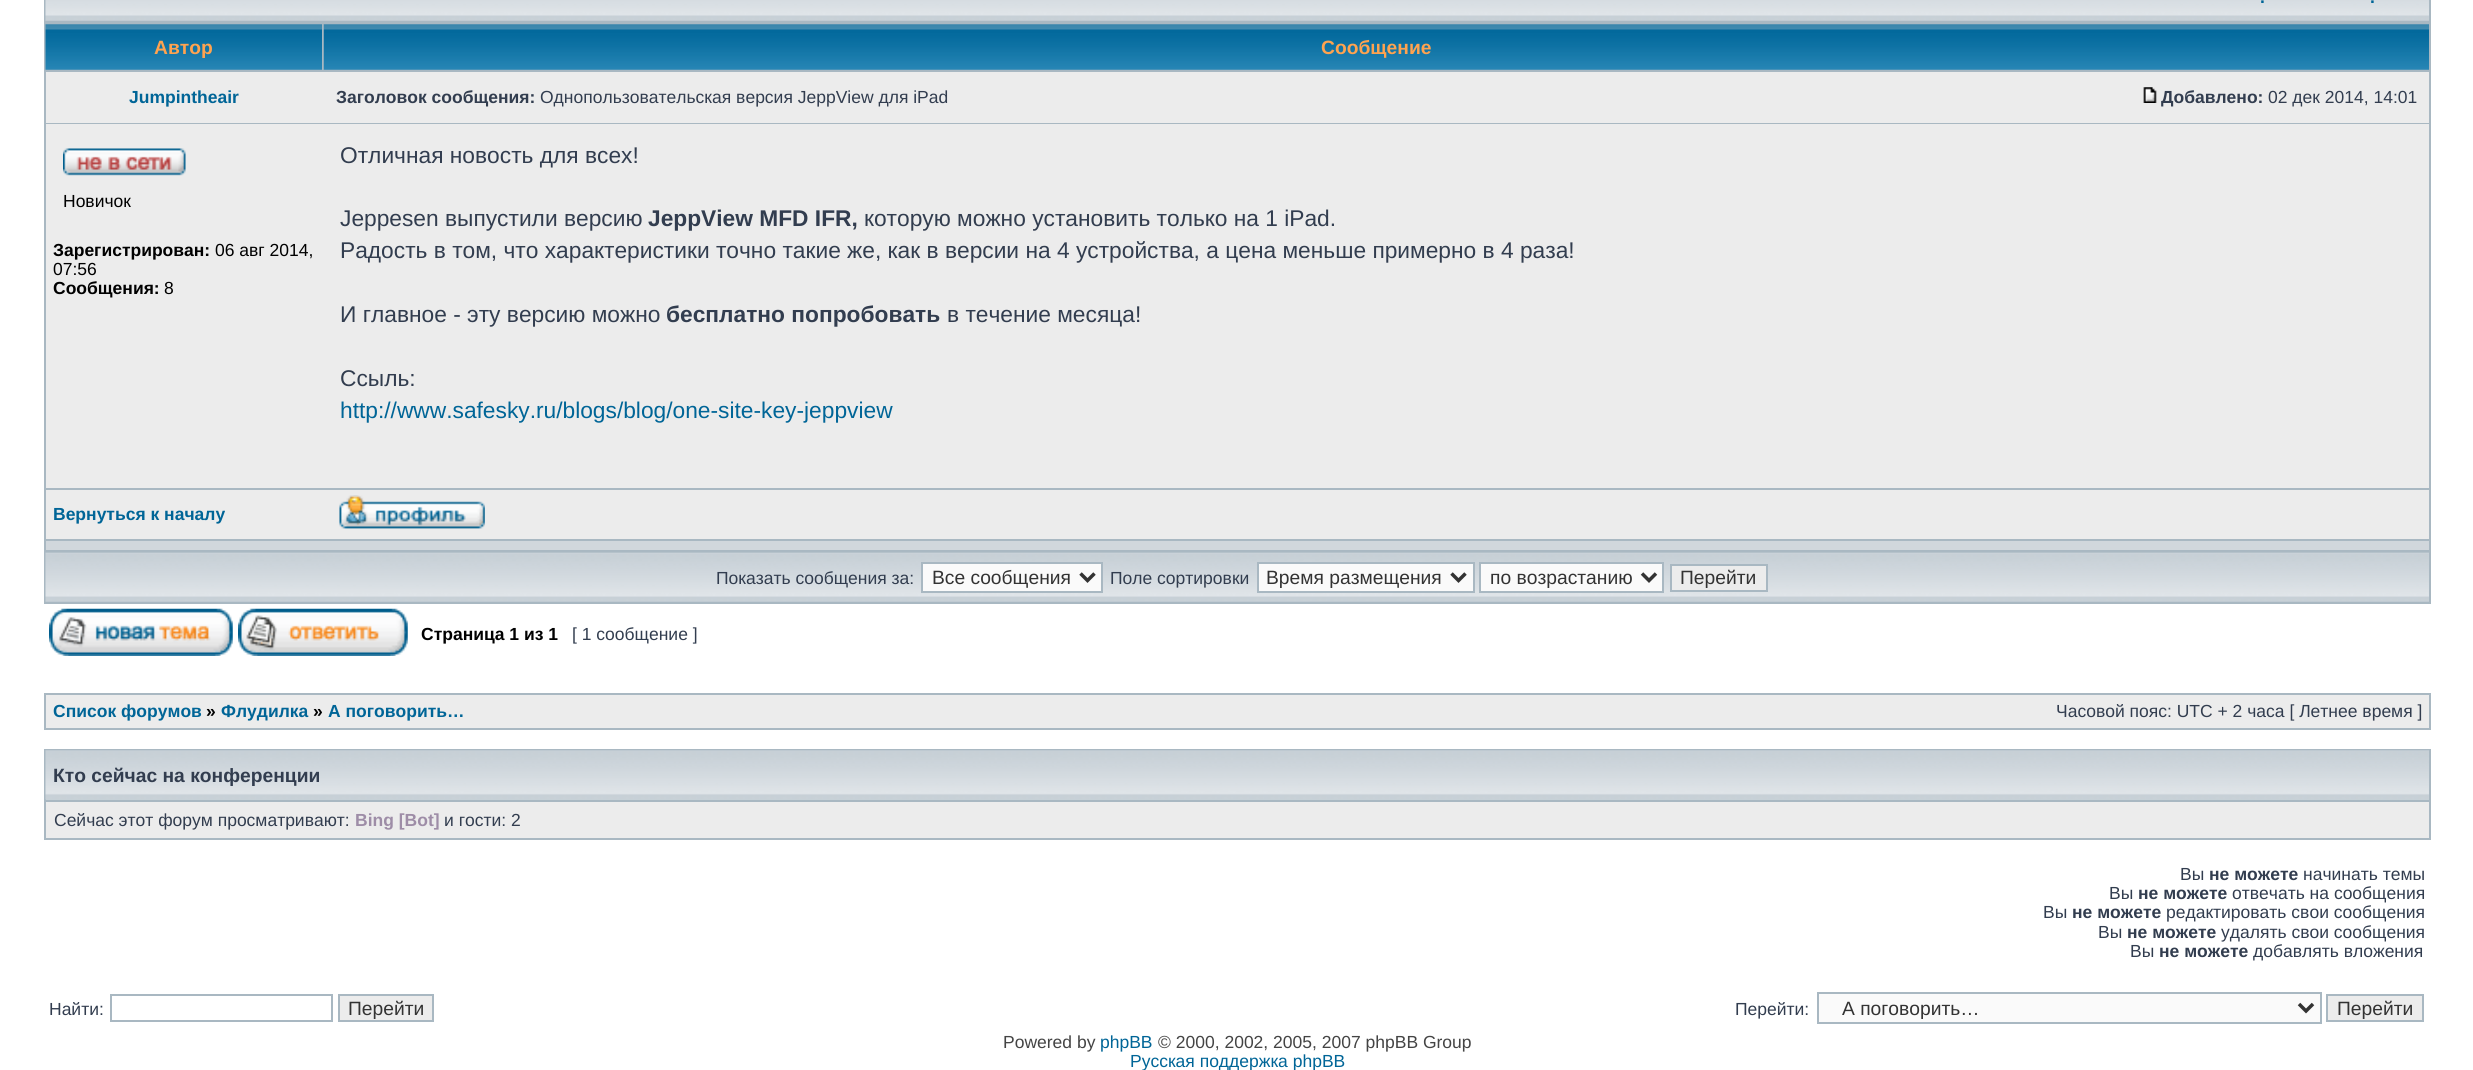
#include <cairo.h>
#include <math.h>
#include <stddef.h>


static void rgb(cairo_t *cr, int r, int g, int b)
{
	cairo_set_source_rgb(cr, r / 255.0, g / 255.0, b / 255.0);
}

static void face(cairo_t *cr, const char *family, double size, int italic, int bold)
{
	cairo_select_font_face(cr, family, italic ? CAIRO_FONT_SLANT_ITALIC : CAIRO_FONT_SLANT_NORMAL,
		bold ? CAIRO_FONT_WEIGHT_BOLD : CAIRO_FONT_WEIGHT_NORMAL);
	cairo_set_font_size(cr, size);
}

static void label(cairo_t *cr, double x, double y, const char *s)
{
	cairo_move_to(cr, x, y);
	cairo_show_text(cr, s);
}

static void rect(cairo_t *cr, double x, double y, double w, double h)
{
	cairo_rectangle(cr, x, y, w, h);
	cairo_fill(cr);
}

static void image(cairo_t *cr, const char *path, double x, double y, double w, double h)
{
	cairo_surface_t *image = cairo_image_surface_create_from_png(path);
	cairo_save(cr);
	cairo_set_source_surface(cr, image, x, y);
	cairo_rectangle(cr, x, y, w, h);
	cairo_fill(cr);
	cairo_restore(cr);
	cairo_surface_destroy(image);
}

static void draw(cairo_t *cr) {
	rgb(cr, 255, 255, 255);
	cairo_paint(cr);
	rgb(cr, 169, 184, 194);
	rect(cr, 44, 0, 2387, 604);
	image(cr, "image0.png", 45, 0, 2384, 21);
	face(cr, "Liberation Sans", 17.5, 0, 1);
	rgb(cr, 0, 101, 151);
	label(cr, 2260, 3, ".");
	label(cr, 2370, 3, ".");
	image(cr, "image1.png", 45, 24, 277, 46);
	face(cr, "Liberation Sans", 19.25, 0, 1);
	rgb(cr, 255, 163, 79);
	label(cr, 154, 54, "Автор");
	image(cr, "image2.png", 323, 24, 2106, 46);
	label(cr, 1321, 54, "Сообщение");
	rgb(cr, 236, 236, 236);
	rect(cr, 46, 72, 2383, 51);
	face(cr, "Liberation Sans", 17.5, 0, 1);
	rgb(cr, 0, 101, 151);
	label(cr, 129, 103, "Jumpintheair");
	rgb(cr, 50, 61, 79);
	label(cr, 336, 103, "Заголовок сообщения:");
	face(cr, "Liberation Sans", 17.5, 0, 0);
	label(cr, 540, 103, "Однопользовательская версия JeppView для iPad");
	image(cr, "image3.png", 2143, 87, 14, 16);
	face(cr, "Liberation Sans", 17.5, 0, 1);
	label(cr, 2161, 103, "Добавлено:");
	face(cr, "Liberation Sans", 17.5, 0, 0);
	label(cr, 2268, 103, "02 дек 2014, 14:01");
	rgb(cr, 236, 236, 236);
	rect(cr, 46, 124, 2383, 364);
	image(cr, "image4.png", 63, 148, 123, 28);
	rgb(cr, 0, 0, 0);
	label(cr, 63, 207, "Новичок");
	face(cr, "Liberation Sans", 17.5, 0, 1);
	label(cr, 53, 256, "Зарегистрирован:");
	face(cr, "Liberation Sans", 17.5, 0, 0);
	label(cr, 215, 256, "06 авг 2014,");
	label(cr, 53, 275, "07:56");
	face(cr, "Liberation Sans", 17.5, 0, 1);
	label(cr, 53, 294, "Сообщения:");
	face(cr, "Liberation Sans", 17.5, 0, 0);
	label(cr, 164, 294, "8");
	face(cr, "Liberation Sans", 22.75, 0, 0);
	rgb(cr, 50, 61, 79);
	label(cr, 340, 163, "Отличная новость для всех!");
	label(cr, 340, 226, "Jeppesen выпустили версию");
	face(cr, "Liberation Sans", 22.75, 0, 1);
	label(cr, 648, 226, "JeppView MFD IFR,");
	face(cr, "Liberation Sans", 22.75, 0, 0);
	label(cr, 864, 226, "которую можно установить только на 1 iPad.");
	label(cr, 340, 258, "Радость в том, что характеристики точно такие же, как в версии на 4 устройства, а цена меньше примерно в 4 раза!");
	label(cr, 340, 322, "И главное - эту версию можно");
	face(cr, "Liberation Sans", 22.75, 0, 1);
	label(cr, 666, 322, "бесплатно попробовать");
	face(cr, "Liberation Sans", 22.75, 0, 0);
	label(cr, 947, 322, "в течение месяца!");
	label(cr, 340, 386, "Ссыль:");
	rgb(cr, 0, 101, 151);
	label(cr, 340, 418, "http://www.safesky.ru/blogs/blog/one-site-key-jeppview");
	rgb(cr, 236, 236, 236);
	rect(cr, 46, 490, 2383, 49);
	face(cr, "Liberation Sans", 17.5, 0, 1);
	rgb(cr, 0, 101, 151);
	label(cr, 53, 520, "Вернуться к началу");
	image(cr, "image5.png", 339, 495, 146, 34);
	rgb(cr, 209, 215, 220);
	rect(cr, 46, 541, 2383, 9);
	image(cr, "image6.png", 45, 552, 2384, 50);
	face(cr, "Liberation Sans", 17.5, 0, 0);
	rgb(cr, 50, 61, 79);
	label(cr, 716, 584, "Показать сообщения за:");
	rgb(cr, 250, 250, 250);
	cairo_rectangle(cr, 922, 563, 180, 29);
	cairo_fill_preserve(cr);
	rgb(cr, 169, 184, 194);
	cairo_stroke(cr);
	cairo_new_path(cr);
	cairo_move_to(cr, 1080.5, 573.5);
	cairo_line_to(cr, 1087.5, 580.5);
	cairo_line_to(cr, 1094.5, 573.5);
	rgb(cr, 51, 51, 51);
	cairo_set_line_width(cr, 3.5);
	cairo_stroke(cr);
	face(cr, "Liberation Sans", 19.25, 0, 0);
	label(cr, 932, 584, "Все сообщения");
	face(cr, "Liberation Sans", 17.5, 0, 0);
	rgb(cr, 50, 61, 79);
	label(cr, 1110, 584, "Поле сортировки");
	rgb(cr, 250, 250, 250);
	cairo_rectangle(cr, 1258, 563, 216, 29);
	cairo_fill_preserve(cr);
	rgb(cr, 169, 184, 194);
	cairo_set_line_width(cr, 2);
	cairo_stroke(cr);
	cairo_new_path(cr);
	cairo_move_to(cr, 1451.5, 573.5);
	cairo_line_to(cr, 1458.5, 580.5);
	cairo_line_to(cr, 1465.5, 573.5);
	rgb(cr, 51, 51, 51);
	cairo_set_line_width(cr, 3.5);
	cairo_stroke(cr);
	face(cr, "Liberation Sans", 19.25, 0, 0);
	label(cr, 1266, 584, "Время размещения");
	rgb(cr, 250, 250, 250);
	cairo_rectangle(cr, 1480, 563, 183, 29);
	cairo_fill_preserve(cr);
	rgb(cr, 169, 184, 194);
	cairo_set_line_width(cr, 2);
	cairo_stroke(cr);
	cairo_new_path(cr);
	cairo_move_to(cr, 1642, 573.5);
	cairo_line_to(cr, 1649, 580.5);
	cairo_line_to(cr, 1656, 573.5);
	rgb(cr, 51, 51, 51);
	cairo_set_line_width(cr, 3.5);
	cairo_stroke(cr);
	label(cr, 1490, 584, "по возрастанию");
	rgb(cr, 236, 236, 236);
	cairo_rectangle(cr, 1671, 565, 96, 26);
	cairo_fill_preserve(cr);
	rgb(cr, 169, 184, 194);
	cairo_set_line_width(cr, 2);
	cairo_stroke(cr);
	rgb(cr, 51, 51, 51);
	label(cr, 1680, 584, "Перейти");
	image(cr, "image7.png", 49, 608, 184, 48);
	image(cr, "image8.png", 238, 608, 170, 48);
	face(cr, "Liberation Sans", 17.5, 0, 1);
	rgb(cr, 0, 0, 0);
	label(cr, 421, 640, "Страница 1 из 1");
	face(cr, "Liberation Sans", 17.5, 0, 0);
	rgb(cr, 50, 61, 79);
	label(cr, 572, 640, "[ 1 сообщение ]");
	rgb(cr, 169, 184, 194);
	rect(cr, 44, 693, 2387, 37);
	rgb(cr, 236, 236, 236);
	rect(cr, 46, 695, 2383, 33);
	face(cr, "Liberation Sans", 17.5, 0, 1);
	rgb(cr, 0, 101, 151);
	label(cr, 53, 717, "Список форумов");
	rgb(cr, 0, 0, 0);
	label(cr, 206, 717, "»");
	rgb(cr, 0, 101, 151);
	label(cr, 221, 717, "Флудилка");
	rgb(cr, 0, 0, 0);
	label(cr, 313, 717, "»");
	rgb(cr, 0, 101, 151);
	label(cr, 328, 717, "А поговорить…");
	face(cr, "Liberation Sans", 17.5, 0, 0);
	rgb(cr, 50, 61, 79);
	label(cr, 2056, 717, "Часовой пояс: UTC + 2 часа [ Летнее время ]");
	rgb(cr, 169, 184, 194);
	rect(cr, 44, 749, 2387, 91);
	rgb(cr, 199, 208, 215);
	rect(cr, 46, 799, 2383, 1);
	image(cr, "image9.png", 45, 750, 2384, 50);
	face(cr, "Liberation Sans", 19.25, 0, 1);
	rgb(cr, 50, 61, 79);
	label(cr, 53, 782, "Кто сейчас на конференции");
	rgb(cr, 236, 236, 236);
	rect(cr, 46, 802, 2383, 36);
	face(cr, "Liberation Sans", 17.5, 0, 0);
	rgb(cr, 50, 61, 79);
	label(cr, 54, 826, "Сейчас этот форум просматривают:");
	face(cr, "Liberation Sans", 17.5, 0, 1);
	rgb(cr, 158, 141, 167);
	label(cr, 355, 826, "Bing [Bot]");
	face(cr, "Liberation Sans", 17.5, 0, 0);
	rgb(cr, 50, 61, 79);
	label(cr, 444, 826, "и гости: 2");
	label(cr, 2180, 880, "Вы");
	face(cr, "Liberation Sans", 17.5, 0, 1);
	label(cr, 2209, 880, "не можете");
	face(cr, "Liberation Sans", 17.5, 0, 0);
	label(cr, 2303, 880, "начинать темы");
	label(cr, 2109, 899, "Вы");
	face(cr, "Liberation Sans", 17.5, 0, 1);
	label(cr, 2138, 899, "не можете");
	face(cr, "Liberation Sans", 17.5, 0, 0);
	label(cr, 2232, 899, "отвечать на сообщения");
	label(cr, 2043, 918, "Вы");
	face(cr, "Liberation Sans", 17.5, 0, 1);
	label(cr, 2072, 918, "не можете");
	face(cr, "Liberation Sans", 17.5, 0, 0);
	label(cr, 2166, 918, "редактировать свои сообщения");
	label(cr, 2098, 938, "Вы");
	face(cr, "Liberation Sans", 17.5, 0, 1);
	label(cr, 2127, 938, "не можете");
	face(cr, "Liberation Sans", 17.5, 0, 0);
	label(cr, 2221, 938, "удалять свои сообщения");
	label(cr, 2130, 957, "Вы");
	face(cr, "Liberation Sans", 17.5, 0, 1);
	label(cr, 2159, 957, "не можете");
	face(cr, "Liberation Sans", 17.5, 0, 0);
	label(cr, 2253, 957, "добавлять вложения");
	label(cr, 49, 1015, "Найти:");
	cairo_rectangle(cr, 111, 995, 221, 26);
	rgb(cr, 169, 184, 194);
	cairo_stroke(cr);
	rgb(cr, 236, 236, 236);
	cairo_rectangle(cr, 339, 995, 94, 26);
	cairo_fill_preserve(cr);
	rgb(cr, 169, 184, 194);
	cairo_stroke(cr);
	face(cr, "Liberation Sans", 19.25, 0, 0);
	rgb(cr, 51, 51, 51);
	label(cr, 348, 1015, "Перейти");
	face(cr, "Liberation Sans", 17.5, 0, 0);
	rgb(cr, 50, 61, 79);
	label(cr, 1735, 1015, "Перейти:");
	rgb(cr, 250, 250, 250);
	cairo_rectangle(cr, 1818, 993, 503, 30);
	cairo_fill_preserve(cr);
	rgb(cr, 169, 184, 194);
	cairo_stroke(cr);
	cairo_new_path(cr);
	cairo_move_to(cr, 2299, 1004);
	cairo_line_to(cr, 2306, 1011);
	cairo_line_to(cr, 2313, 1004);
	rgb(cr, 51, 51, 51);
	cairo_set_line_width(cr, 3.5);
	cairo_stroke(cr);
	face(cr, "Liberation Sans", 19.25, 0, 0);
	label(cr, 1842, 1015, "А поговорить…");
	rgb(cr, 236, 236, 236);
	cairo_rectangle(cr, 2327, 995, 96, 26);
	cairo_fill_preserve(cr);
	rgb(cr, 169, 184, 194);
	cairo_set_line_width(cr, 2);
	cairo_stroke(cr);
	rgb(cr, 51, 51, 51);
	label(cr, 2337, 1015, "Перейти");
	face(cr, "Liberation Sans", 17.5, 0, 0);
	rgb(cr, 68, 68, 68);
	label(cr, 1003, 1048, "Powered by");
	rgb(cr, 0, 101, 151);
	label(cr, 1100, 1048, "phpBB");
	rgb(cr, 68, 68, 68);
	label(cr, 1158, 1048, "© 2000, 2002, 2005, 2007 phpBB Group");
	rgb(cr, 0, 101, 151);
	label(cr, 1130, 1067, "Русская поддержка phpBB");
}

int main(void) {
	cairo_surface_t *surface = cairo_image_surface_create(CAIRO_FORMAT_RGB24, 2473, 1070);
	cairo_t *cr = cairo_create(surface);
	cairo_font_options_t *options = cairo_font_options_create();
	cairo_font_options_set_hint_metrics(options, CAIRO_HINT_METRICS_OFF);
	cairo_font_options_set_hint_style(options, CAIRO_HINT_STYLE_NONE);
	cairo_set_font_options(cr, options);
	cairo_set_miter_limit(cr, 4);
	draw(cr);
	cairo_surface_write_to_png(surface, "render.png");
	cairo_font_options_destroy(options);
	cairo_destroy(cr);
	cairo_surface_destroy(surface);
	return 0;
}
